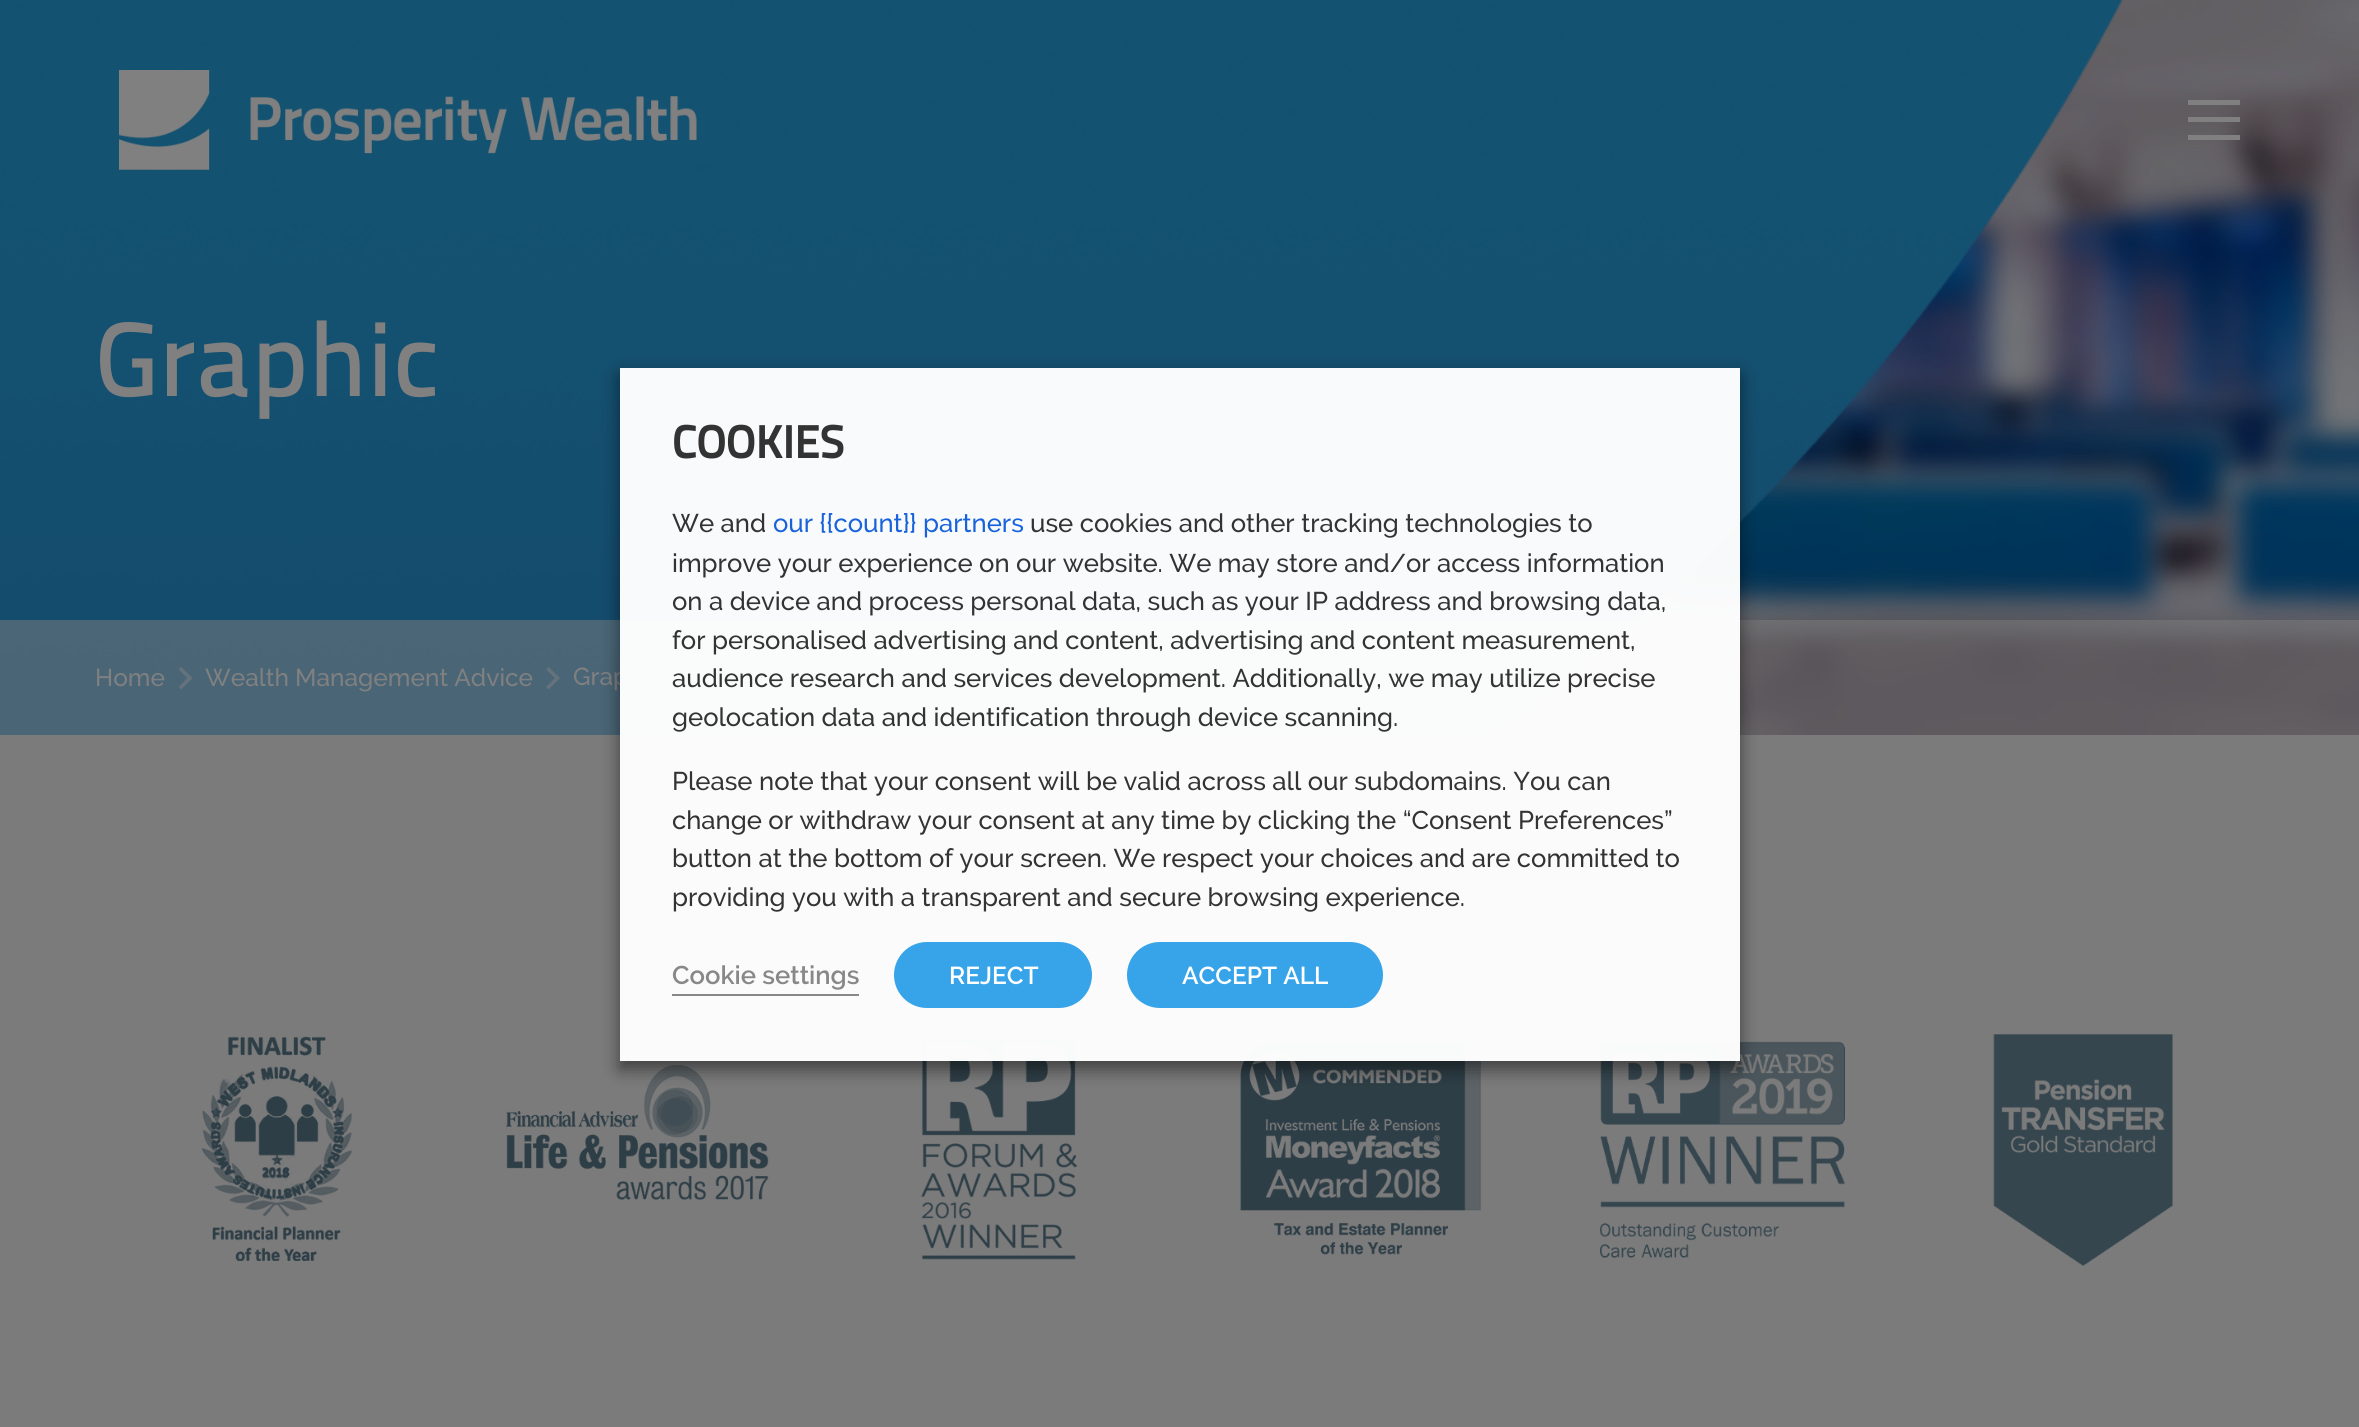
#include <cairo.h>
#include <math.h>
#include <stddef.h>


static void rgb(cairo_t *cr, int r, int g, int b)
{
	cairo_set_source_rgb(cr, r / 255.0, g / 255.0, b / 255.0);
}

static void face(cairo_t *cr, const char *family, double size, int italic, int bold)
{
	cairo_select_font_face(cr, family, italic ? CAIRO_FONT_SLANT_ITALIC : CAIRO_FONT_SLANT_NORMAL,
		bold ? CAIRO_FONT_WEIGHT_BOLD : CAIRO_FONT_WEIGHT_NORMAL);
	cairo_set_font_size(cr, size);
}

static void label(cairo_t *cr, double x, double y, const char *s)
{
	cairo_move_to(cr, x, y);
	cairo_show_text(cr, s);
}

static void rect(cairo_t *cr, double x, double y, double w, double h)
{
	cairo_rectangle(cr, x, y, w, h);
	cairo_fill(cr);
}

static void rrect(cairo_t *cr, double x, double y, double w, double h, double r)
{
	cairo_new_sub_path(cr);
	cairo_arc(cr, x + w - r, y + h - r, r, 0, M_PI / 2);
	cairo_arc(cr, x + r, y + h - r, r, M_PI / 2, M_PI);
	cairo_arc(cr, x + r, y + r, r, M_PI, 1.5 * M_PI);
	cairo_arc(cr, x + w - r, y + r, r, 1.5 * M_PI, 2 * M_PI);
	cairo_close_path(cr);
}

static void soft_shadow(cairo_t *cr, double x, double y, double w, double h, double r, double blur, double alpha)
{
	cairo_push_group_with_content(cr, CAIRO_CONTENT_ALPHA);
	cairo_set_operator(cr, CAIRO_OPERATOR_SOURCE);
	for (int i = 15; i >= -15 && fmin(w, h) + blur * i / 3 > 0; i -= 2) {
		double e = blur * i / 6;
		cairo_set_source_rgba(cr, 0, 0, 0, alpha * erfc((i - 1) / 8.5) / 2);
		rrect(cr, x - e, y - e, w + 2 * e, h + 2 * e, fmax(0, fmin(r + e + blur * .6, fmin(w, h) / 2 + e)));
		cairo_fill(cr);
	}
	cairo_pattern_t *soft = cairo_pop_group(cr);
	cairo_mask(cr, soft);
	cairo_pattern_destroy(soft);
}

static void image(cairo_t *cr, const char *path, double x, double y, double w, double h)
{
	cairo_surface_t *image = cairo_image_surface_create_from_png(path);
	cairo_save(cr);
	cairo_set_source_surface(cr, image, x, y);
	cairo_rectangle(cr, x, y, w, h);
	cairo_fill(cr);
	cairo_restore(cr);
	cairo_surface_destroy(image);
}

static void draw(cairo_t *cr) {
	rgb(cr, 255, 255, 255);
	cairo_paint(cr);
	image(cr, "image0.png", 1488, 0, 871, 735);
	image(cr, "image1.png", 0, 0, 2123, 735);
	image(cr, "image2.png", 119, 70, 578, 100);
	rgb(cr, 128, 128, 128);
	rect(cr, 2188, 117, 52, 5);
	rect(cr, 2188, 100, 52, 5);
	rect(cr, 2188, 135, 52, 5);
	face(cr, "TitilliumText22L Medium", 105, 0, 0);
	label(cr, 95, 396, "Graphic");
	cairo_set_source_rgba(cr, 0.502, 0.502, 0.502, 0.5);
	rect(cr, 0, 620, 2359, 115);
	face(cr, "Raleway Medium", 24.5, 0, 0);
	rgb(cr, 128, 128, 128);
	label(cr, 95, 686, "Home");
	image(cr, "image3.png", 178, 666, 15, 24);
	label(cr, 205, 686, "Wealth Management Advice");
	image(cr, "image4.png", 546, 666, 14, 24);
	label(cr, 573, 685, "Grap");
	rgb(cr, 123, 123, 123);
	rect(cr, 0, 735, 2359, 692);
	image(cr, "image6.png", 506, 1064, 263, 136);
	image(cr, "image7.png", 921, 1038, 157, 222);
	image(cr, "image8.png", 1240, 1041, 241, 214);
	image(cr, "image9.png", 1600, 1041, 245, 217);
	cairo_save(cr);
	cairo_set_fill_rule(cr, CAIRO_FILL_RULE_EVEN_ODD);
	cairo_new_path(cr);
	cairo_move_to(cr, 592, 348);
	cairo_line_to(cr, 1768, 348);
	cairo_line_to(cr, 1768, 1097);
	cairo_line_to(cr, 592, 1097);
	cairo_close_path(cr);
	cairo_move_to(cr, 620, 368);
	cairo_line_to(cr, 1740, 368);
	cairo_line_to(cr, 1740, 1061);
	cairo_line_to(cr, 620, 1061);
	cairo_close_path(cr);
	cairo_clip(cr);
	rgb(cr, 0, 0, 0);
	soft_shadow(cr, 620, 376, 1120, 693, 0, 9, 0.5);
	cairo_restore(cr);
	cairo_set_source_rgba(cr, 1, 1, 1, 0.97);
	rect(cr, 620, 368, 1120, 693);
	face(cr, "TitilliumText22L", 45.5, 0, 1);
	rgb(cr, 51, 51, 51);
	label(cr, 672, 458, "COOKIES");
	face(cr, "Raleway Medium", 25.65, 0, 0);
	label(cr, 672, 532, "We and");
	rgb(cr, 24, 99, 220);
	label(cr, 773, 532, "our {{count}} partners");
	rgb(cr, 51, 51, 51);
	label(cr, 1030, 532, "use cookies and other tracking technologies to");
	label(cr, 672, 572, "improve your experience on our website. We may store and/or access information");
	label(cr, 672, 610, "on a device and process personal data, such as your IP address and browsing data,");
	label(cr, 672, 649, "for personalised advertising and content, advertising and content measurement,");
	label(cr, 672, 687, "audience research and services development. Additionally, we may utilize precise");
	label(cr, 672, 726, "geolocation data and identification through device scanning.");
	label(cr, 672, 790, "Please note that your consent will be valid across all our subdomains. You can");
	label(cr, 672, 829, "change or withdraw your consent at any time by clicking the “Consent Preferences”");
	label(cr, 672, 867, "button at the bottom of your screen. We respect your choices and are committed to");
	label(cr, 672, 906, "providing you with a transparent and secure browsing experience.");
	rgb(cr, 137, 136, 136);
	rect(cr, 672, 994, 187, 2);
	face(cr, "Raleway SemiBold", 25.65, 0, 0);
	label(cr, 672, 984, "Cookie settings");
	rgb(cr, 55, 164, 233);
	rrect(cr, 895, 943, 196, 64, 32);
	cairo_fill_preserve(cr);
	cairo_stroke(cr);
	face(cr, "Raleway SemiBold", 24.5, 0, 0);
	rgb(cr, 255, 255, 255);
	label(cr, 949, 984, "REJECT");
	rgb(cr, 55, 164, 233);
	rrect(cr, 1128, 943, 254, 64, 32);
	cairo_fill_preserve(cr);
	cairo_stroke(cr);
	rgb(cr, 255, 255, 255);
	label(cr, 1182, 984, "ACCEPT ALL");
	image(cr, "image5.png", 201, 1036, 152, 225);
	image(cr, "image10.png", 1993, 1034, 180, 232);
}

int main(void) {
	cairo_surface_t *surface = cairo_image_surface_create(CAIRO_FORMAT_RGB24, 2359, 1427);
	cairo_t *cr = cairo_create(surface);
	cairo_font_options_t *options = cairo_font_options_create();
	cairo_font_options_set_hint_metrics(options, CAIRO_HINT_METRICS_OFF);
	cairo_font_options_set_hint_style(options, CAIRO_HINT_STYLE_NONE);
	cairo_set_font_options(cr, options);
	cairo_set_miter_limit(cr, 4);
	draw(cr);
	cairo_surface_write_to_png(surface, "render.png");
	cairo_font_options_destroy(options);
	cairo_destroy(cr);
	cairo_surface_destroy(surface);
	return 0;
}
